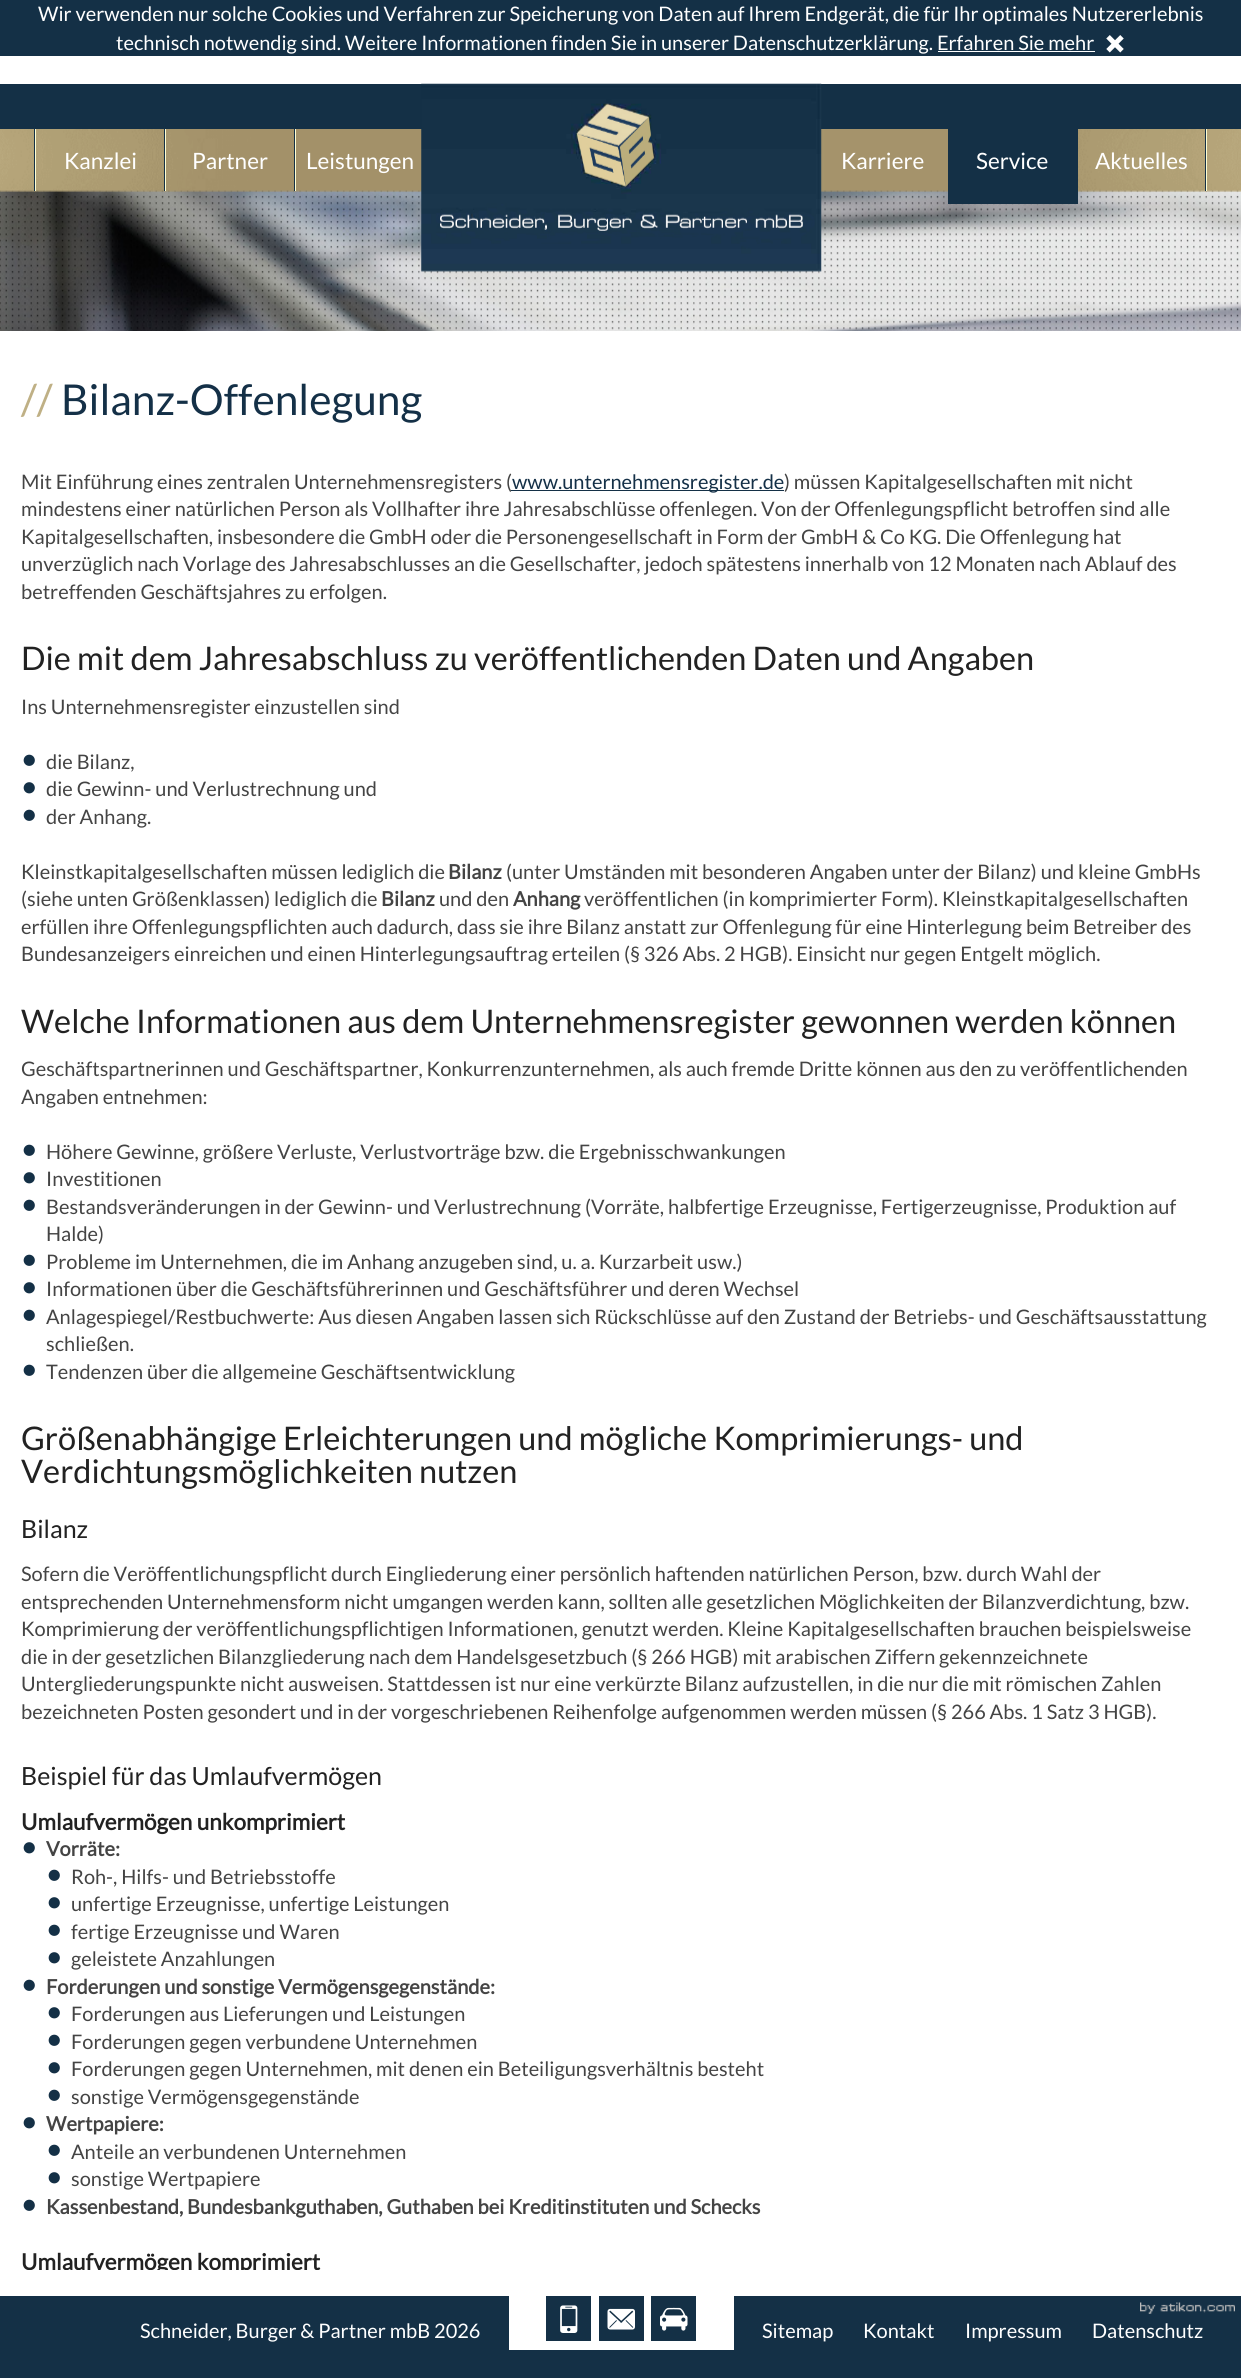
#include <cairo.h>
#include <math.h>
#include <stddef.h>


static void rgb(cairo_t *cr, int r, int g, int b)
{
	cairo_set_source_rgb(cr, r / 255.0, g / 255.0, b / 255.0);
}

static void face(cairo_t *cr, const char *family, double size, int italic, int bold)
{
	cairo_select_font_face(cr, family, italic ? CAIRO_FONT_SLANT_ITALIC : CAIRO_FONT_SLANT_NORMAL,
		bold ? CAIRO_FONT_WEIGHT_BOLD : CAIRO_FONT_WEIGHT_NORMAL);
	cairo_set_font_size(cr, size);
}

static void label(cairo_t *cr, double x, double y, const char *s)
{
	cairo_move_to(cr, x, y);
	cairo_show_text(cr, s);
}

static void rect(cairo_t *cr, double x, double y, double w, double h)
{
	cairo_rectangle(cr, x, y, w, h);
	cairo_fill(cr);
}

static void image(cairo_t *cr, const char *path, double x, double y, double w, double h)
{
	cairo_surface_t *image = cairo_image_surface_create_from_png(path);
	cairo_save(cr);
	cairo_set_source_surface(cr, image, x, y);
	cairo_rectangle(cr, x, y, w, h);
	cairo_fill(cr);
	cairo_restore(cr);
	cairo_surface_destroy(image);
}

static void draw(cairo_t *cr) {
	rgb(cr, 255, 255, 255);
	cairo_paint(cr);
	rgb(cr, 20, 48, 70);
	rect(cr, 0, 0, 1241, 56);
	face(cr, "Lato", 20, 0, 0);
	rgb(cr, 255, 255, 255);
	label(cr, 38, 21, "Wir verwenden nur solche Cookies und Verfahren zur Speicherung von Daten auf Ihrem Endgerät, die für Ihr optimales Nutzererlebnis");
	label(cr, 116, 50, "technisch notwendig sind. Weitere Informationen finden Sie in unserer Datenschutzerklärung. Erfahren Sie mehr");
	image(cr, "image0.png", 1106, 35, 18, 18);
	rect(cr, 938, 51, 157, 1);
	rgb(cr, 20, 48, 70);
	rect(cr, 0, 84, 1241, 45);
	image(cr, "image3.png", 0, 190, 1241, 141);
	image(cr, "image2.png", 0, 129, 1241, 63);
	image(cr, "image1.png", 421, 83, 401, 189);
	rect(cr, 34, 129, 1, 62);
	rgb(cr, 254, 255, 213);
	rect(cr, 35, 129, 1, 62);
	face(cr, "Lato", 22.5, 0, 0);
	rgb(cr, 255, 255, 255);
	label(cr, 64, 169, "Kanzlei");
	rgb(cr, 20, 48, 70);
	rect(cr, 164, 129, 1, 62);
	rgb(cr, 254, 255, 213);
	rect(cr, 165, 129, 1, 62);
	rgb(cr, 255, 255, 255);
	label(cr, 192, 169, "Partner");
	rgb(cr, 20, 48, 70);
	rect(cr, 294, 129, 1, 62);
	rgb(cr, 254, 255, 213);
	rect(cr, 295, 129, 1, 62);
	rgb(cr, 255, 255, 255);
	label(cr, 306, 169, "Leistungen");
	label(cr, 841, 169, "Karriere");
	rgb(cr, 20, 48, 70);
	rect(cr, 948, 129, 130, 75);
	rgb(cr, 255, 255, 255);
	label(cr, 976, 169, "Service");
	rgb(cr, 20, 48, 70);
	rect(cr, 1205, 129, 1, 62);
	rgb(cr, 254, 255, 213);
	rect(cr, 1206, 129, 1, 62);
	rgb(cr, 255, 255, 255);
	label(cr, 1095, 169, "Aktuelles");
	face(cr, "Lato", 42.5, 0, 0);
	rgb(cr, 191, 176, 133);
	label(cr, 21, 415, "//");
	rgb(cr, 20, 48, 71);
	label(cr, 61, 415, "Bilanz-Offenlegung");
	face(cr, "Lato", 20, 0, 0);
	rgb(cr, 68, 68, 68);
	label(cr, 21, 489, "Mit Einführung eines zentralen Unternehmensregisters (");
	rgb(cr, 20, 48, 70);
	rect(cr, 511, 490, 273, 1);
	rgb(cr, 20, 48, 71);
	label(cr, 512, 489, "www.unternehmensregister.de");
	rgb(cr, 68, 68, 68);
	label(cr, 784, 489, ") müssen Kapitalgesellschaften mit nicht");
	label(cr, 21, 516, "mindestens einer natürlichen Person als Vollhafter ihre Jahresabschlüsse offenlegen. Von der Offenlegungspflicht betroffen sind alle");
	label(cr, 21, 544, "Kapitalgesellschaften, insbesondere die GmbH oder die Personengesellschaft in Form der GmbH & Co KG. Die Offenlegung hat");
	label(cr, 21, 571, "unverzüglich nach Vorlage des Jahresabschlusses an die Gesellschafter, jedoch spätestens innerhalb von 12 Monaten nach Ablauf des");
	label(cr, 21, 599, "betreffenden Geschäftsjahres zu erfolgen.");
	face(cr, "Lato", 32.5, 0, 0);
	rgb(cr, 34, 34, 34);
	label(cr, 21, 670, "Die mit dem Jahresabschluss zu veröffentlichenden Daten und Angaben");
	face(cr, "Lato", 20, 0, 0);
	rgb(cr, 68, 68, 68);
	label(cr, 21, 714, "Ins Unternehmensregister einzustellen sind");
	image(cr, "image4.png", 23, 754, 12, 12);
	label(cr, 46, 769, "die Bilanz,");
	image(cr, "image5.png", 23, 782, 12, 12);
	label(cr, 46, 796, "die Gewinn- und Verlustrechnung und");
	image(cr, "image4.png", 23, 809, 12, 12);
	label(cr, 46, 824, "der Anhang.");
	label(cr, 21, 879, "Kleinstkapitalgesellschaften müssen lediglich die");
	face(cr, "Lato", 20, 0, 1);
	label(cr, 448, 879, "Bilanz");
	face(cr, "Lato", 20, 0, 0);
	label(cr, 506, 879, "(unter Umständen mit besonderen Angaben unter der Bilanz) und kleine GmbHs");
	label(cr, 21, 906, "(siehe unten Größenklassen) lediglich die");
	face(cr, "Lato", 20, 0, 1);
	label(cr, 381, 906, "Bilanz");
	face(cr, "Lato", 20, 0, 0);
	label(cr, 439, 906, "und den");
	face(cr, "Lato", 20, 0, 1);
	label(cr, 513, 906, "Anhang");
	face(cr, "Lato", 20, 0, 0);
	label(cr, 584, 906, "veröffentlichen (in komprimierter Form). Kleinstkapitalgesellschaften");
	label(cr, 21, 934, "erfüllen ihre Offenlegungspflichten auch dadurch, dass sie ihre Bilanz anstatt zur Offenlegung für eine Hinterlegung beim Betreiber des");
	label(cr, 21, 961, "Bundesanzeigers einreichen und einen Hinterlegungsauftrag erteilen (§ 326 Abs. 2 HGB). Einsicht nur gegen Entgelt möglich.");
	face(cr, "Lato", 32.5, 0, 0);
	rgb(cr, 34, 34, 34);
	label(cr, 21, 1033, "Welche Informationen aus dem Unternehmensregister gewonnen werden können");
	face(cr, "Lato", 20, 0, 0);
	rgb(cr, 68, 68, 68);
	label(cr, 21, 1076, "Geschäftspartnerinnen und Geschäftspartner, Konkurrenzunternehmen, als auch fremde Dritte können aus den zu veröffentlichenden");
	label(cr, 21, 1104, "Angaben entnehmen:");
	image(cr, "image4.png", 23, 1144, 12, 12);
	label(cr, 46, 1159, "Höhere Gewinne, größere Verluste, Verlustvorträge bzw. die Ergebnisschwankungen");
	image(cr, "image5.png", 23, 1172, 12, 12);
	label(cr, 46, 1186, "Investitionen");
	image(cr, "image4.png", 23, 1199, 12, 12);
	label(cr, 46, 1214, "Bestandsveränderungen in der Gewinn- und Verlustrechnung (Vorräte, halbfertige Erzeugnisse, Fertigerzeugnisse, Produktion auf");
	label(cr, 46, 1241, "Halde)");
	image(cr, "image4.png", 23, 1254, 12, 12);
	label(cr, 46, 1269, "Probleme im Unternehmen, die im Anhang anzugeben sind, u. a. Kurzarbeit usw.)");
	image(cr, "image5.png", 23, 1282, 12, 12);
	label(cr, 46, 1296, "Informationen über die Geschäftsführerinnen und Geschäftsführer und deren Wechsel");
	image(cr, "image4.png", 23, 1309, 12, 12);
	label(cr, 46, 1324, "Anlagespiegel/Restbuchwerte: Aus diesen Angaben lassen sich Rückschlüsse auf den Zustand der Betriebs- und Geschäftsausstattung");
	label(cr, 46, 1351, "schließen.");
	image(cr, "image4.png", 23, 1364, 12, 12);
	label(cr, 46, 1379, "Tendenzen über die allgemeine Geschäftsentwicklung");
	face(cr, "Lato", 32.5, 0, 0);
	rgb(cr, 34, 34, 34);
	label(cr, 21, 1450, "Größenabhängige Erleichterungen und mögliche Komprimierungs- und");
	label(cr, 21, 1483, "Verdichtungsmöglichkeiten nutzen");
	face(cr, "Lato", 25, 0, 0);
	label(cr, 21, 1538, "Bilanz");
	face(cr, "Lato", 20, 0, 0);
	rgb(cr, 68, 68, 68);
	label(cr, 21, 1581, "Sofern die Veröffentlichungspflicht durch Eingliederung einer persönlich haftenden natürlichen Person, bzw. durch Wahl der");
	label(cr, 21, 1609, "entsprechenden Unternehmensform nicht umgangen werden kann, sollten alle gesetzlichen Möglichkeiten der Bilanzverdichtung, bzw.");
	label(cr, 21, 1636, "Komprimierung der veröffentlichungspflichtigen Informationen, genutzt werden. Kleine Kapitalgesellschaften brauchen beispielsweise");
	label(cr, 21, 1664, "die in der gesetzlichen Bilanzgliederung nach dem Handelsgesetzbuch (§ 266 HGB) mit arabischen Ziffern gekennzeichnete");
	label(cr, 21, 1691, "Untergliederungspunkte nicht ausweisen. Stattdessen ist nur eine verkürzte Bilanz aufzustellen, in die nur die mit römischen Zahlen");
	label(cr, 21, 1719, "bezeichneten Posten gesondert und in der vorgeschriebenen Reihenfolge aufgenommen werden müssen (§ 266 Abs. 1 Satz 3 HGB).");
	face(cr, "Lato", 25, 0, 0);
	rgb(cr, 34, 34, 34);
	label(cr, 21, 1785, "Beispiel für das Umlaufvermögen");
	face(cr, "Lato", 22.5, 0, 1);
	label(cr, 21, 1830, "Umlaufvermögen unkomprimiert");
	image(cr, "image5.png", 23, 1842, 12, 12);
	face(cr, "Lato", 20, 0, 1);
	rgb(cr, 68, 68, 68);
	label(cr, 46, 1856, "Vorräte:");
	image(cr, "image4.png", 48, 1869, 12, 12);
	face(cr, "Lato", 20, 0, 0);
	label(cr, 71, 1884, "Roh-, Hilfs- und Betriebsstoffe");
	image(cr, "image5.png", 48, 1897, 12, 12);
	label(cr, 71, 1911, "unfertige Erzeugnisse, unfertige Leistungen");
	image(cr, "image4.png", 48, 1924, 12, 12);
	label(cr, 71, 1939, "fertige Erzeugnisse und Waren");
	image(cr, "image5.png", 48, 1952, 12, 12);
	label(cr, 71, 1966, "geleistete Anzahlungen");
	image(cr, "image4.png", 23, 1979, 12, 12);
	face(cr, "Lato", 20, 0, 1);
	label(cr, 46, 1994, "Forderungen und sonstige Vermögensgegenstände:");
	image(cr, "image5.png", 48, 2007, 12, 12);
	face(cr, "Lato", 20, 0, 0);
	label(cr, 71, 2021, "Forderungen aus Lieferungen und Leistungen");
	image(cr, "image4.png", 48, 2034, 12, 12);
	label(cr, 71, 2049, "Forderungen gegen verbundene Unternehmen");
	image(cr, "image5.png", 48, 2062, 12, 12);
	label(cr, 71, 2076, "Forderungen gegen Unternehmen, mit denen ein Beteiligungsverhältnis besteht");
	image(cr, "image4.png", 48, 2089, 12, 12);
	label(cr, 71, 2104, "sonstige Vermögensgegenstände");
	image(cr, "image5.png", 23, 2117, 12, 12);
	face(cr, "Lato", 20, 0, 1);
	label(cr, 46, 2131, "Wertpapiere:");
	image(cr, "image4.png", 48, 2144, 12, 12);
	face(cr, "Lato", 20, 0, 0);
	label(cr, 71, 2159, "Anteile an verbundenen Unternehmen");
	image(cr, "image5.png", 48, 2172, 12, 12);
	label(cr, 71, 2186, "sonstige Wertpapiere");
	image(cr, "image4.png", 23, 2199, 12, 12);
	face(cr, "Lato", 20, 0, 1);
	label(cr, 46, 2214, "Kassenbestand, Bundesbankguthaben, Guthaben bei Kreditinstituten und Schecks");
	cairo_save(cr);
	cairo_rectangle(cr, 0, 358, 1241, 1912);
	cairo_clip(cr);
	face(cr, "Lato", 22.5, 0, 1);
	rgb(cr, 34, 34, 34);
	label(cr, 21, 2270, "Umlaufvermögen komprimiert");
	cairo_restore(cr);
	rgb(cr, 20, 48, 70);
	rect(cr, 0, 2350, 1241, 28);
	rect(cr, 546, 2296, 45, 45);
	image(cr, "image6.png", 560, 2305, 18, 28);
	rect(cr, 599, 2296, 45, 45);
	image(cr, "image7.png", 607, 2308, 28, 22);
	rect(cr, 651, 2296, 45, 45);
	image(cr, "image8.png", 660, 2307, 28, 24);
	rect(cr, 734, 2296, 507, 54);
	image(cr, "image9.png", 1140, 2302, 95, 12);
	rect(cr, 0, 2296, 509, 54);
	face(cr, "Lato", 20, 0, 0);
	rgb(cr, 255, 255, 255);
	label(cr, 140, 2338, "Schneider, Burger & Partner mbB 2026");
	label(cr, 762, 2338, "Sitemap");
	label(cr, 863, 2338, "Kontakt");
	label(cr, 965, 2338, "Impressum");
	label(cr, 1092, 2338, "Datenschutz");
}

int main(void) {
	cairo_surface_t *surface = cairo_image_surface_create(CAIRO_FORMAT_RGB24, 1241, 2378);
	cairo_t *cr = cairo_create(surface);
	cairo_font_options_t *options = cairo_font_options_create();
	cairo_font_options_set_hint_metrics(options, CAIRO_HINT_METRICS_OFF);
	cairo_font_options_set_hint_style(options, CAIRO_HINT_STYLE_NONE);
	cairo_set_font_options(cr, options);
	cairo_set_miter_limit(cr, 4);
	draw(cr);
	cairo_surface_write_to_png(surface, "render.png");
	cairo_font_options_destroy(options);
	cairo_destroy(cr);
	cairo_surface_destroy(surface);
	return 0;
}
